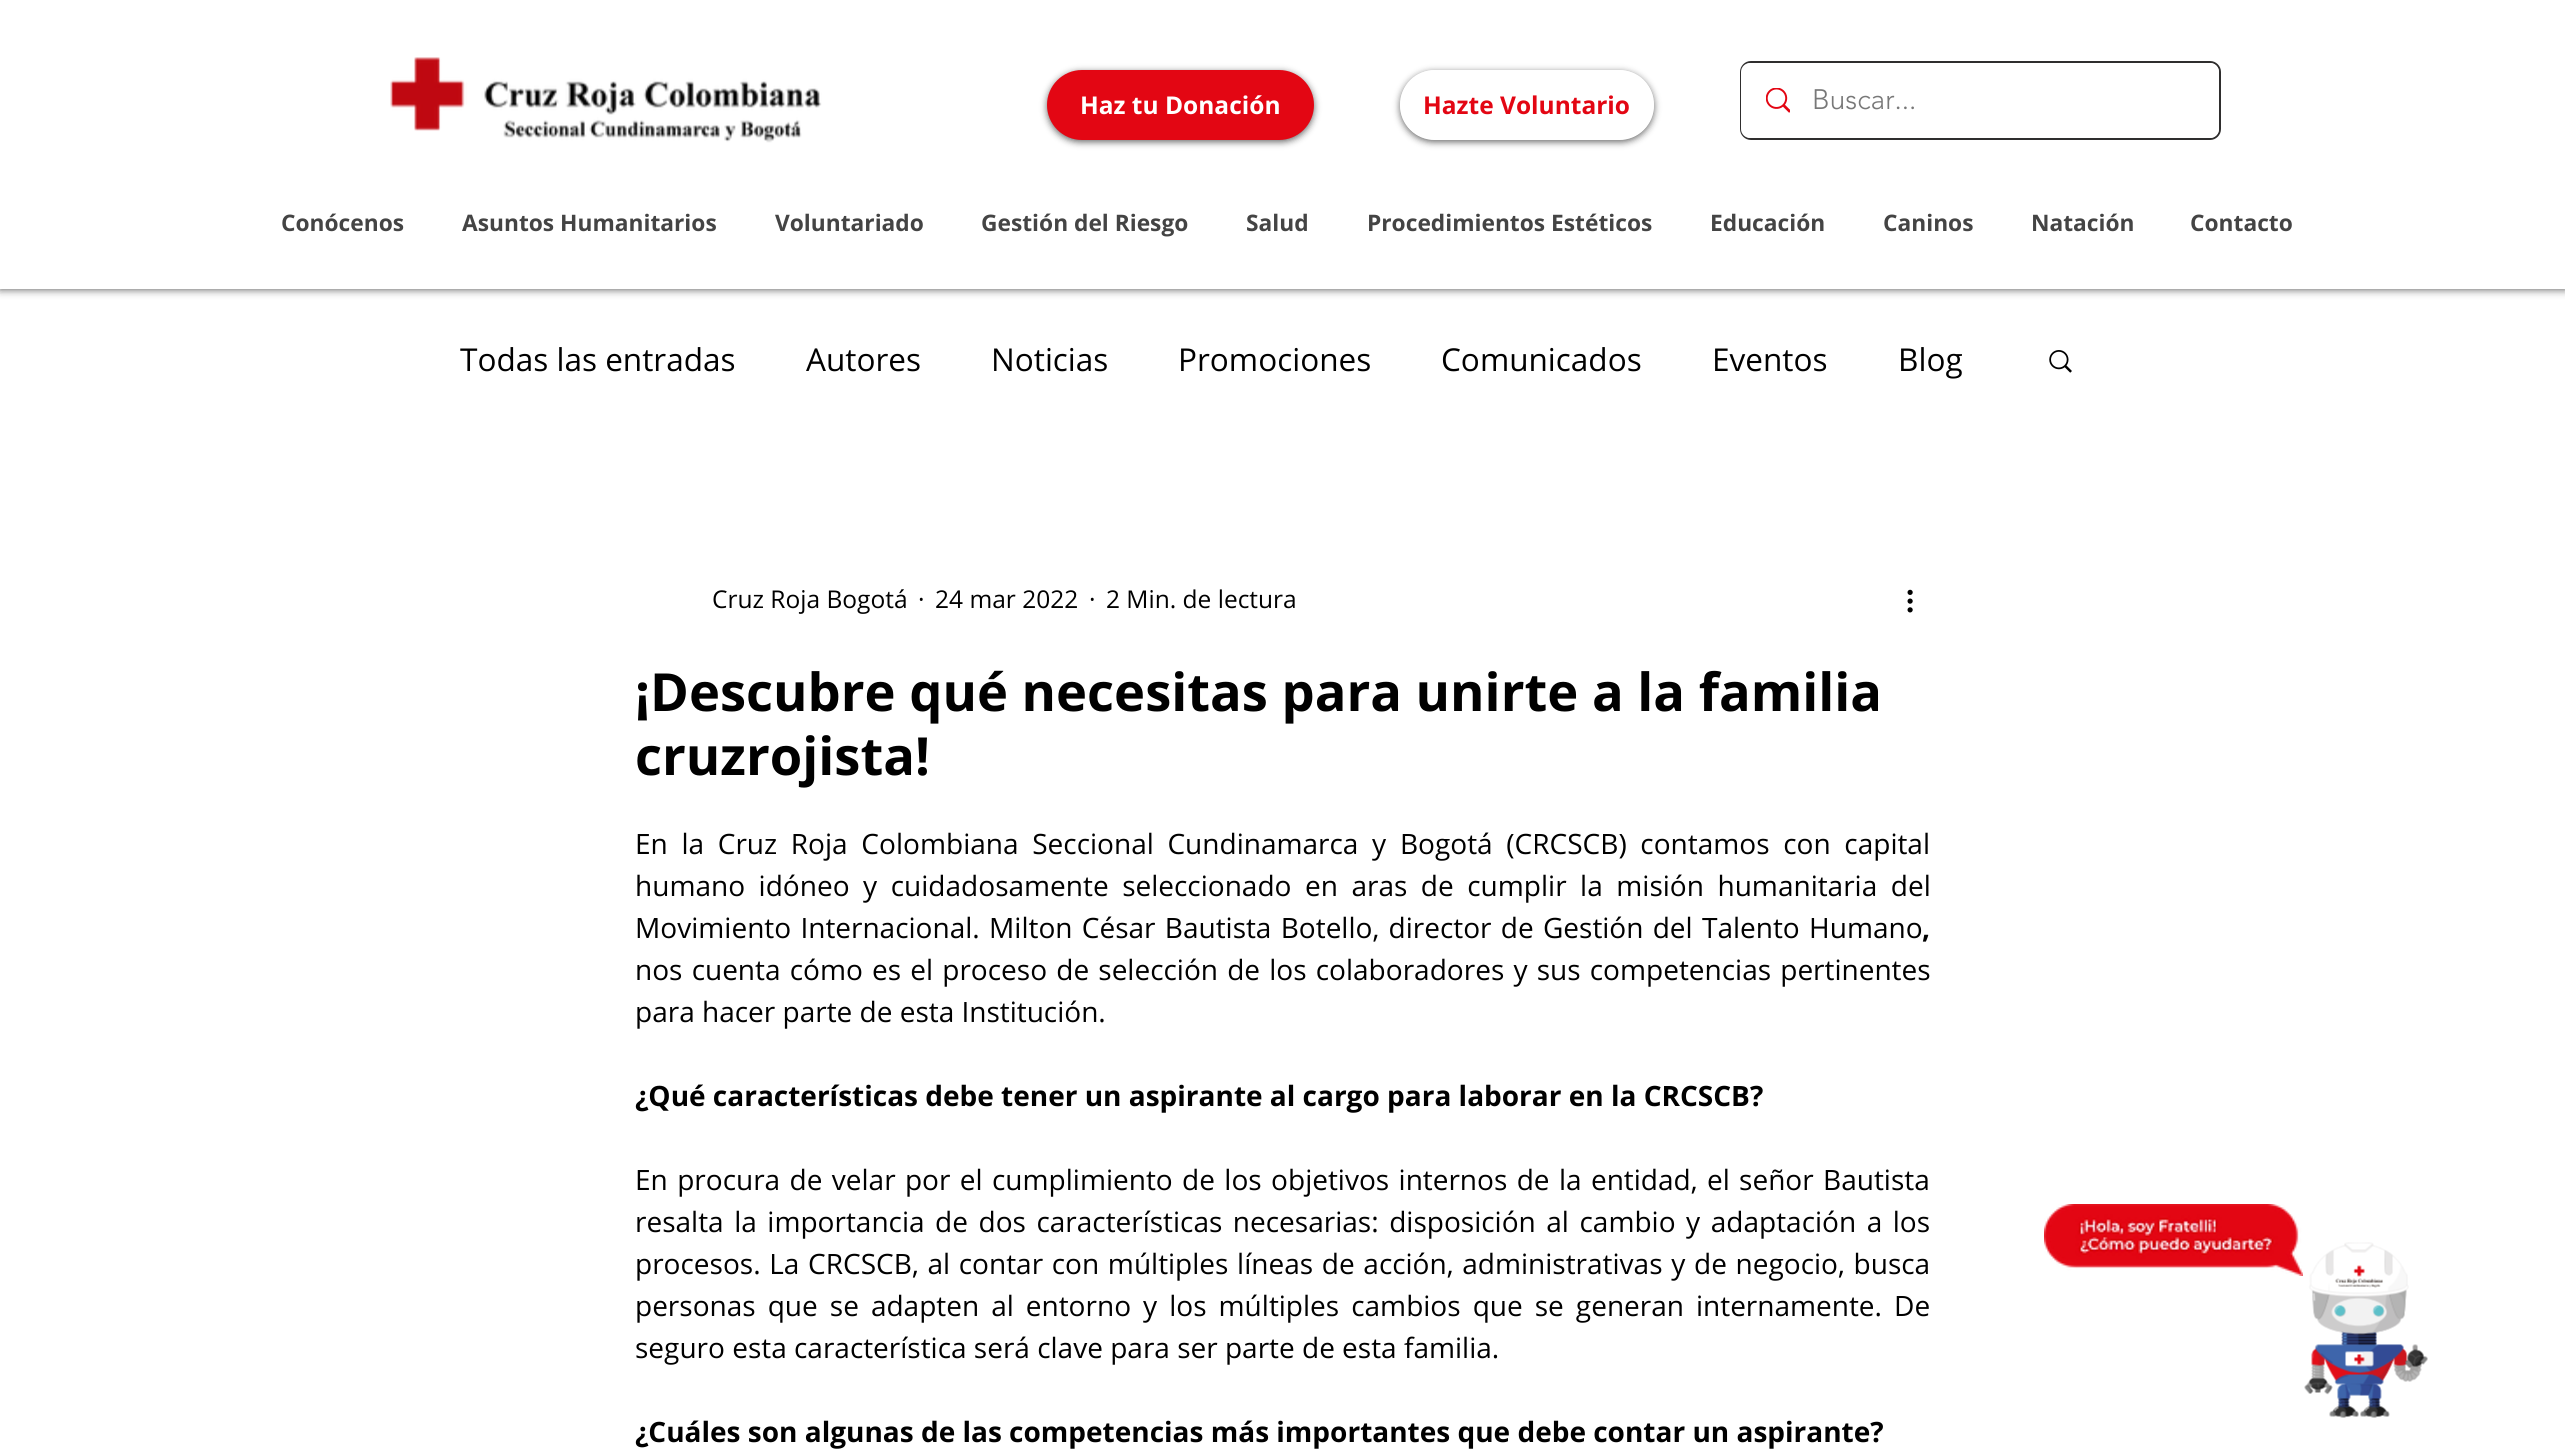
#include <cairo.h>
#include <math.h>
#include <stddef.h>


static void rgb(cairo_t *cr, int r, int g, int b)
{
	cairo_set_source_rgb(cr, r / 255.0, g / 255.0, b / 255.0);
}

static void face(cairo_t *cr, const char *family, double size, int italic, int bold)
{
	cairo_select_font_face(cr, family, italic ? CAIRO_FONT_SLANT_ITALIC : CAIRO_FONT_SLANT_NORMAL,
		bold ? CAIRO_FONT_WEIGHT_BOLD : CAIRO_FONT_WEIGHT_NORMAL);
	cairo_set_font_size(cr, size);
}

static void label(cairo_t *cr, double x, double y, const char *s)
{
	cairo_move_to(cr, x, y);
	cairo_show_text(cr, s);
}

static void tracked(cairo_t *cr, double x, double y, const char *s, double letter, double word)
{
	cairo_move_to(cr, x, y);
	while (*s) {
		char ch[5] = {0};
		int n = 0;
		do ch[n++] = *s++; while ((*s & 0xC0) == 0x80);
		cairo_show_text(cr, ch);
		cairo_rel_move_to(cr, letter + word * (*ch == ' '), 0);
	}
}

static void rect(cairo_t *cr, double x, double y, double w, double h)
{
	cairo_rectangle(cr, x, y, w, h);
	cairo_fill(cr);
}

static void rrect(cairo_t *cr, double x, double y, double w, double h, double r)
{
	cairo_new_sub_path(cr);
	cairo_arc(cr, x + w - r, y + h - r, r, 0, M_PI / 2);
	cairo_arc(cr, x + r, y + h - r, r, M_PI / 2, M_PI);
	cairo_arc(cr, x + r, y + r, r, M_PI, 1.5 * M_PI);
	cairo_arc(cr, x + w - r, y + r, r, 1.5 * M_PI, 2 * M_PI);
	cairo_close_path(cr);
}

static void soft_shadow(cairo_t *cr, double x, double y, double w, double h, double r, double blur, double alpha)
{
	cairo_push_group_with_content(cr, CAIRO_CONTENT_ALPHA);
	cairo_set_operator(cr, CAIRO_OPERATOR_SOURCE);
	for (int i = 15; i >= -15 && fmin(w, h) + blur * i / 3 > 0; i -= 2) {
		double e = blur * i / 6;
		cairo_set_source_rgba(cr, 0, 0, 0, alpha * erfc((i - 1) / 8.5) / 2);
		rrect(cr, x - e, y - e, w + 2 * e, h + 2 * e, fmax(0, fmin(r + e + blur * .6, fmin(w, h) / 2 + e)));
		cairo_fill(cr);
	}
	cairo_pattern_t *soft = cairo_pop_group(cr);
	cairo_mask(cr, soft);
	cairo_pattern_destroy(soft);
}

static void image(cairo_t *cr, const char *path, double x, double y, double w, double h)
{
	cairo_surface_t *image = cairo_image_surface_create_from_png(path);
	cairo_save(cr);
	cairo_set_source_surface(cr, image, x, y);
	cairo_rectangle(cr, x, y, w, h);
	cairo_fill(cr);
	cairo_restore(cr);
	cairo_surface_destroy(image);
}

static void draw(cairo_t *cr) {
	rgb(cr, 255, 255, 255);
	cairo_paint(cr);
	rgb(cr, 0, 0, 0);
	soft_shadow(cr, 0, 0, 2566, 289, 0, 4.5, 0.7);
	rgb(cr, 255, 255, 255);
	rect(cr, 0, 0, 2565, 289);
	image(cr, "image0.png", 390, 57, 432, 86);
	rgb(cr, 0, 0, 0);
	soft_shadow(cr, 1047, 72, 267, 70, 35, 3.5, 0.6);
	rgb(cr, 227, 6, 19);
	rrect(cr, 1047, 70, 267, 70, 35);
	cairo_fill(cr);
	face(cr, "Open Sans", 24.5, 0, 1);
	rgb(cr, 255, 255, 255);
	label(cr, 1080, 114, "Haz tu Donación");
	cairo_save(cr);
	cairo_set_fill_rule(cr, CAIRO_FILL_RULE_EVEN_ODD);
	cairo_new_path(cr);
	cairo_move_to(cr, 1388, 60);
	cairo_line_to(cr, 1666, 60);
	cairo_line_to(cr, 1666, 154);
	cairo_line_to(cr, 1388, 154);
	cairo_close_path(cr);
	cairo_move_to(cr, 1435, 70);
	cairo_line_to(cr, 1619, 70);
	cairo_curve_to(cr, 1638.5, 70, 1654, 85.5, 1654, 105);
	cairo_curve_to(cr, 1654, 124.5, 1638.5, 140, 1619, 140);
	cairo_line_to(cr, 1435, 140);
	cairo_curve_to(cr, 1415.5, 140, 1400, 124.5, 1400, 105);
	cairo_curve_to(cr, 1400, 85.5, 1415.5, 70, 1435, 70);
	cairo_close_path(cr);
	cairo_clip(cr);
	rgb(cr, 0, 0, 0);
	soft_shadow(cr, 1400, 72, 254, 70, 35, 3.5, 0.6);
	cairo_restore(cr);
	rgb(cr, 227, 6, 19);
	label(cr, 1423, 114, "Hazte Voluntario");
	rrect(cr, 1741, 62, 479, 77, 10);
	rgb(cr, 47, 46, 46);
	cairo_stroke(cr);
	rgb(cr, 255, 255, 255);
	rrect(cr, 1741, 63, 478, 75, 9);
	cairo_fill(cr);
	image(cr, "image1.png", 1766, 88, 24, 25);
	face(cr, "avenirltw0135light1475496 Light", 28, 0, 0);
	rgb(cr, 120, 120, 120);
	label(cr, 1812, 109, "Buscar...");
	face(cr, "Open Sans", 22.75, 0, 1);
	rgb(cr, 68, 68, 68);
	label(cr, 281, 231, "Conócenos");
	label(cr, 462, 231, "Asuntos Humanitarios");
	label(cr, 775, 231, "Voluntariado");
	label(cr, 981, 231, "Gestión del Riesgo");
	label(cr, 1246, 231, "Salud");
	label(cr, 1367, 231, "Procedimientos Estéticos");
	label(cr, 1710, 231, "Educación");
	label(cr, 1883, 231, "Caninos");
	label(cr, 2031, 231, "Natación");
	label(cr, 2190, 231, "Contacto");
	face(cr, "Open Sans", 31.5, 0, 0);
	rgb(cr, 0, 0, 0);
	label(cr, 460, 371, "Todas las entradas");
	label(cr, 806, 371, "Autores");
	label(cr, 991, 371, "Noticias");
	label(cr, 1178, 371, "Promociones");
	label(cr, 1441, 371, "Comunicados");
	label(cr, 1712, 371, "Eventos");
	label(cr, 1898, 371, "Blog");
	image(cr, "image2.png", 2049, 350, 23, 23);
	face(cr, "Open Sans", 24.5, 0, 0);
	label(cr, 712, 608, "Cruz Roja Bogotá");
	label(cr, 918, 608, "·");
	label(cr, 935, 608, "24 mar 2022");
	label(cr, 1089, 608, "·");
	label(cr, 1106, 608, "2 Min. de lectura");
	image(cr, "image3.png", 1907, 589, 6, 24);
	face(cr, "Open Sans", 52.5, 0, 1);
	label(cr, 635, 711, "¡Descubre qué necesitas para unirte a la familia");
	label(cr, 635, 775, "cruzrojista!");
	face(cr, "Open Sans", 28, 0, 0);
	tracked(cr, 635, 854, "En la Cruz Roja Colombiana Seccional Cundinamarca y Bogotá (CRCSCB) contamos con capital", 0, 6.4);
	tracked(cr, 635, 896, "humano idóneo y cuidadosamente seleccionado en aras de cumplir la misión humanitaria del", 0, 6.25);
	tracked(cr, 635, 938, "Movimiento Internacional. Milton César Bautista Botello, director de Gestión del Talento Humano", 0, 2);
	face(cr, "Open Sans", 28, 0, 1);
	label(cr, 1922, 938, ",");
	face(cr, "Open Sans", 28, 0, 0);
	tracked(cr, 635, 980, "nos cuenta cómo es el proceso de selección de los colaboradores y sus competencias pertinentes", 0, 1.9);
	label(cr, 635, 1022, "para hacer parte de esta Institución.");
	face(cr, "Open Sans", 28, 0, 1);
	label(cr, 635, 1106, "¿Qué características debe tener un aspirante al cargo para laborar en la CRCSCB?");
	face(cr, "Open Sans", 28, 0, 0);
	tracked(cr, 635, 1190, "En procura de velar por el cumplimiento de los objetivos internos de la entidad, el señor Bautista", 0, 2.1);
	tracked(cr, 635, 1232, "resalta la importancia de dos características necesarias: disposición al cambio y adaptación a los", 0, 3.25);
	tracked(cr, 635, 1274, "procesos. La CRCSCB, al contar con múltiples líneas de acción, administrativas y de negocio, busca", 0, 1.4);
	tracked(cr, 635, 1316, "personas que se adapten al entorno y los múltiples cambios que se generan internamente. De", 0, 4.75);
	label(cr, 635, 1358, "seguro esta característica será clave para ser parte de esta familia.");
	face(cr, "Open Sans", 28, 0, 1);
	label(cr, 635, 1442, "¿Cuáles son algunas de las competencias más importantes que debe contar un aspirante?");
	image(cr, "image4.png", 2044, 1204, 259, 72);
	image(cr, "image5.png", 2304, 1242, 124, 176);
}

int main(void) {
	cairo_surface_t *surface = cairo_image_surface_create(CAIRO_FORMAT_RGB24, 2565, 1456);
	cairo_t *cr = cairo_create(surface);
	cairo_font_options_t *options = cairo_font_options_create();
	cairo_font_options_set_hint_metrics(options, CAIRO_HINT_METRICS_OFF);
	cairo_font_options_set_hint_style(options, CAIRO_HINT_STYLE_NONE);
	cairo_set_font_options(cr, options);
	cairo_set_miter_limit(cr, 4);
	draw(cr);
	cairo_surface_write_to_png(surface, "render.png");
	cairo_font_options_destroy(options);
	cairo_destroy(cr);
	cairo_surface_destroy(surface);
	return 0;
}
